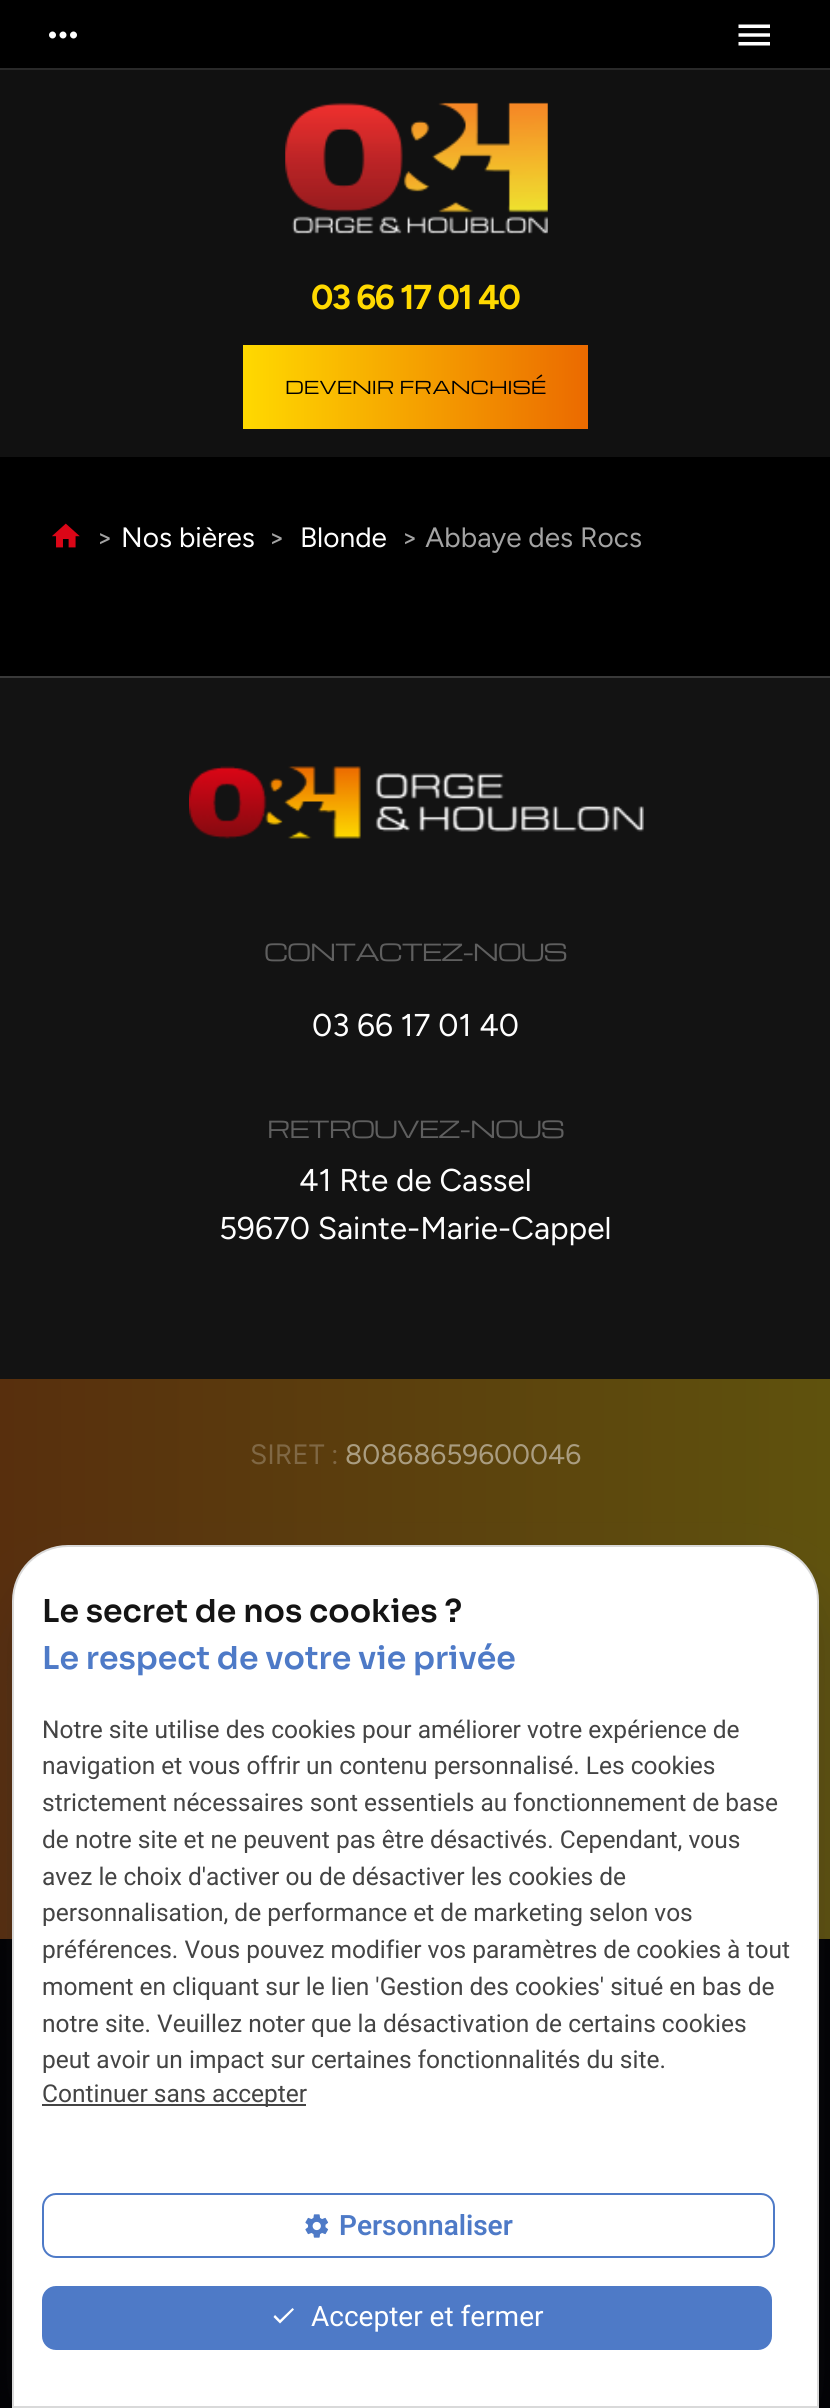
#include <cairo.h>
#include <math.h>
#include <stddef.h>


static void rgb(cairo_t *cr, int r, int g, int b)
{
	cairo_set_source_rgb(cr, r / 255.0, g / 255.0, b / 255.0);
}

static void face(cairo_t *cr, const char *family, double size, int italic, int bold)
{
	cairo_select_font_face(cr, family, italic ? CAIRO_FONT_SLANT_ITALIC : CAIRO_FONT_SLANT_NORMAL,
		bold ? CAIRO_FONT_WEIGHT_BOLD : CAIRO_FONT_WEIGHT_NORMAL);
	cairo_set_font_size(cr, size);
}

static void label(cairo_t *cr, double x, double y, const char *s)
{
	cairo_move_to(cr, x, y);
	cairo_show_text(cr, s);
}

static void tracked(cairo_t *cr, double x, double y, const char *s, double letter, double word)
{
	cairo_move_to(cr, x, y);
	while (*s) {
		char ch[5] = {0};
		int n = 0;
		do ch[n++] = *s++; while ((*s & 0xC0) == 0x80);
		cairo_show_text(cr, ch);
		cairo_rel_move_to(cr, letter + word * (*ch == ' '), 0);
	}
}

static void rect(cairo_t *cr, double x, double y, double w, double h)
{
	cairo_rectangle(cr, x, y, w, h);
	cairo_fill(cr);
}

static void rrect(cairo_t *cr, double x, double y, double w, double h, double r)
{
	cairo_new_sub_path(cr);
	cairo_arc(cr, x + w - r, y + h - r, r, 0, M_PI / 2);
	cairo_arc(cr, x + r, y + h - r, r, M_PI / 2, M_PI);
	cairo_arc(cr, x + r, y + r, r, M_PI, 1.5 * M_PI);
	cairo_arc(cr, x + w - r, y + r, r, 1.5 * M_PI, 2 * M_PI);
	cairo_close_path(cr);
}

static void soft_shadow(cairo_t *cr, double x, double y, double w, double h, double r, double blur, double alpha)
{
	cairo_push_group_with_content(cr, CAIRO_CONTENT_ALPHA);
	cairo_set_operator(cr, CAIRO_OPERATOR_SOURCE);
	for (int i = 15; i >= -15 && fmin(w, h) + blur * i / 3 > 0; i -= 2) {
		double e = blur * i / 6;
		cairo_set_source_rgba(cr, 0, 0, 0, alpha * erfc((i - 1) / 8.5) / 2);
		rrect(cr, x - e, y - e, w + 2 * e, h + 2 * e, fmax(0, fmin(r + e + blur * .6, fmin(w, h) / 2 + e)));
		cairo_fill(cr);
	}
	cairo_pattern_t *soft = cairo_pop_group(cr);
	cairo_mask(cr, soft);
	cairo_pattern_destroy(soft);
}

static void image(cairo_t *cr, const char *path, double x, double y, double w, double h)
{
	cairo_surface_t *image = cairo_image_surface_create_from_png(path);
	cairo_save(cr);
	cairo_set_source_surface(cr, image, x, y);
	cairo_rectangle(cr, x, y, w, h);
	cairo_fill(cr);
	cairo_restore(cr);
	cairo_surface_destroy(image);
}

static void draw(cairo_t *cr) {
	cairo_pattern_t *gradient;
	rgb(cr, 255, 255, 255);
	cairo_paint(cr);
	image(cr, "image0.png", 0, 0, 830, 2408);
	rgb(cr, 41, 41, 41);
	rect(cr, 0, 68, 830, 2);
	image(cr, "image1.png", 49, 31, 28, 8);
	image(cr, "image2.png", 738, 24, 32, 22);
	rgb(cr, 17, 17, 17);
	rect(cr, 0, 70, 830, 387);
	image(cr, "image3.png", 285, 102, 263, 132);
	face(cr, "Figtree", 34.5, 0, 1);
	rgb(cr, 255, 217, 0);
	tracked(cr, 311, 309, "03 66 17 01 40", -1.5, 0);
	gradient = cairo_pattern_create_linear(243, 387, 588, 387);
	cairo_pattern_add_color_stop_rgba(gradient, 0, 1, 0.851, 0, 1);
	cairo_pattern_add_color_stop_rgba(gradient, 1, 0.922, 0.416, 0, 1);
	cairo_set_source(cr, gradient);
	cairo_pattern_destroy(gradient);
	rect(cr, 243, 345, 345, 84);
	face(cr, "Michroma", 17.5, 0, 0);
	rgb(cr, 0, 0, 0);
	label(cr, 285, 394, "DEVENIR FRANCHISÉ");
	image(cr, "image4.png", 52, 523, 28, 25);
	face(cr, "Figtree", 28, 0, 0);
	rgb(cr, 163, 163, 163);
	label(cr, 96, 547, ">");
	rgb(cr, 255, 255, 255);
	label(cr, 121, 547, "Nos bières");
	rgb(cr, 163, 163, 163);
	label(cr, 268, 547, ">");
	rgb(cr, 255, 255, 255);
	label(cr, 300, 547, "Blonde");
	rgb(cr, 163, 163, 163);
	label(cr, 401, 547, "> Abbaye des Rocs");
	rgb(cr, 19, 19, 19);
	rect(cr, 0, 678, 830, 701);
	rgb(cr, 57, 57, 57);
	rect(cr, 0, 676, 830, 2);
	image(cr, "image5.png", 189, 766, 455, 73);
	face(cr, "Michroma", 23.1, 0, 0);
	rgb(cr, 95, 95, 95);
	tracked(cr, 264, 961, "CONTACTEZ-NOUS", -1.25, 0);
	face(cr, "Figtree", 31.5, 0, 0);
	rgb(cr, 255, 255, 255);
	label(cr, 312, 1036, "03 66 17 01 40");
	face(cr, "Michroma", 23.1, 0, 0);
	rgb(cr, 95, 95, 95);
	tracked(cr, 267, 1138, "RETROUVEZ-NOUS", -1.2, 0);
	face(cr, "Figtree", 31.5, 0, 0);
	rgb(cr, 255, 255, 255);
	label(cr, 299, 1191, "41 Rte de Cassel");
	label(cr, 219, 1239, "59670 Sainte-Marie-Cappel");
	gradient = cairo_pattern_create_linear(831, 1659, 0, 1659);
	cairo_pattern_add_color_stop_rgba(gradient, 0, 0.373, 0.322, 0.051, 1);
	cairo_pattern_add_color_stop_rgba(gradient, 1, 0.345, 0.184, 0.051, 1);
	cairo_set_source(cr, gradient);
	cairo_pattern_destroy(gradient);
	rect(cr, 0, 1379, 830, 560);
	face(cr, "Figtree", 28, 0, 0);
	rgb(cr, 128, 104, 69);
	label(cr, 250, 1464, "SIRET :");
	rgb(cr, 170, 157, 129);
	label(cr, 345, 1464, "80868659600046");
	rgb(cr, 0, 0, 0);
	soft_shadow(cr, 44, 1608, 744, 800, 25, 31.5, 0.3);
	rgb(cr, 50, 50, 93);
	soft_shadow(cr, 33, 1619, 765, 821, 35, 52.5, 0.25);
	rgb(cr, 255, 255, 255);
	cairo_new_path(cr);
	cairo_move_to(cr, 68, 1546);
	cairo_line_to(cr, 763, 1546);
	cairo_curve_to(cr, 793.5, 1546, 818, 1570.5, 818, 1601);
	cairo_line_to(cr, 818, 2407);
	cairo_line_to(cr, 13, 2407);
	cairo_line_to(cr, 13, 1601);
	cairo_curve_to(cr, 13, 1570.5, 37.5, 1546, 68, 1546);
	cairo_close_path(cr);
	cairo_fill_preserve(cr);
	rgb(cr, 217, 217, 217);
	cairo_stroke(cr);
	face(cr, "Sora SemiBold", 31.5, 0, 0);
	rgb(cr, 20, 20, 20);
	label(cr, 42, 1622, "Le secret de nos cookies ?");
	rgb(cr, 78, 122, 199);
	label(cr, 42, 1669, "Le respect de votre vie privée");
	face(cr, "Roboto", 24.5, 0, 0);
	rgb(cr, 68, 68, 68);
	label(cr, 42, 1738, "Notre site utilise des cookies pour améliorer votre expérience de");
	label(cr, 42, 1774, "navigation et vous offrir un contenu personnalisé. Les cookies");
	label(cr, 42, 1811, "strictement nécessaires sont essentiels au fonctionnement de base");
	label(cr, 42, 1848, "de notre site et ne peuvent pas être désactivés. Cependant, vous");
	label(cr, 42, 1885, "avez le choix d'activer ou de désactiver les cookies de");
	label(cr, 42, 1921, "personnalisation, de performance et de marketing selon vos");
	label(cr, 42, 1958, "préférences. Vous pouvez modifier vos paramètres de cookies à tout");
	label(cr, 42, 1995, "moment en cliquant sur le lien 'Gestion des cookies' situé en bas de");
	label(cr, 42, 2032, "notre site. Veuillez noter que la désactivation de certains cookies");
	label(cr, 42, 2068, "peut avoir un impact sur certaines fonctionnalités du site.");
	rect(cr, 42, 2104, 264, 2);
	label(cr, 42, 2102, "Continuer sans accepter");
	rrect(cr, 43, 2194, 731, 63, 13);
	rgb(cr, 78, 122, 199);
	cairo_stroke(cr);
	image(cr, "image6.png", 305, 2214, 24, 24);
	face(cr, "Roboto SemiBold", 28, 0, 0);
	label(cr, 339, 2235, "Personnaliser");
	rrect(cr, 42, 2286, 730, 64, 14);
	cairo_fill(cr);
	rgb(cr, 255, 255, 255);
	cairo_new_path(cr);
	cairo_move_to(cr, 280, 2320);
	cairo_line_to(cr, 292.5, 2308);
	cairo_line_to(cr, 294, 2309.5);
	cairo_line_to(cr, 280, 2323.5);
	cairo_line_to(cr, 273.5, 2317);
	cairo_line_to(cr, 275, 2315);
	cairo_close_path(cr);
	cairo_fill(cr);
	face(cr, "Roboto", 28, 0, 0);
	label(cr, 311, 2326, "Accepter et fermer");
}

int main(void) {
	cairo_surface_t *surface = cairo_image_surface_create(CAIRO_FORMAT_RGB24, 830, 2408);
	cairo_t *cr = cairo_create(surface);
	cairo_font_options_t *options = cairo_font_options_create();
	cairo_font_options_set_hint_metrics(options, CAIRO_HINT_METRICS_OFF);
	cairo_font_options_set_hint_style(options, CAIRO_HINT_STYLE_NONE);
	cairo_set_font_options(cr, options);
	cairo_set_miter_limit(cr, 4);
	draw(cr);
	cairo_surface_write_to_png(surface, "render.png");
	cairo_font_options_destroy(options);
	cairo_destroy(cr);
	cairo_surface_destroy(surface);
	return 0;
}
